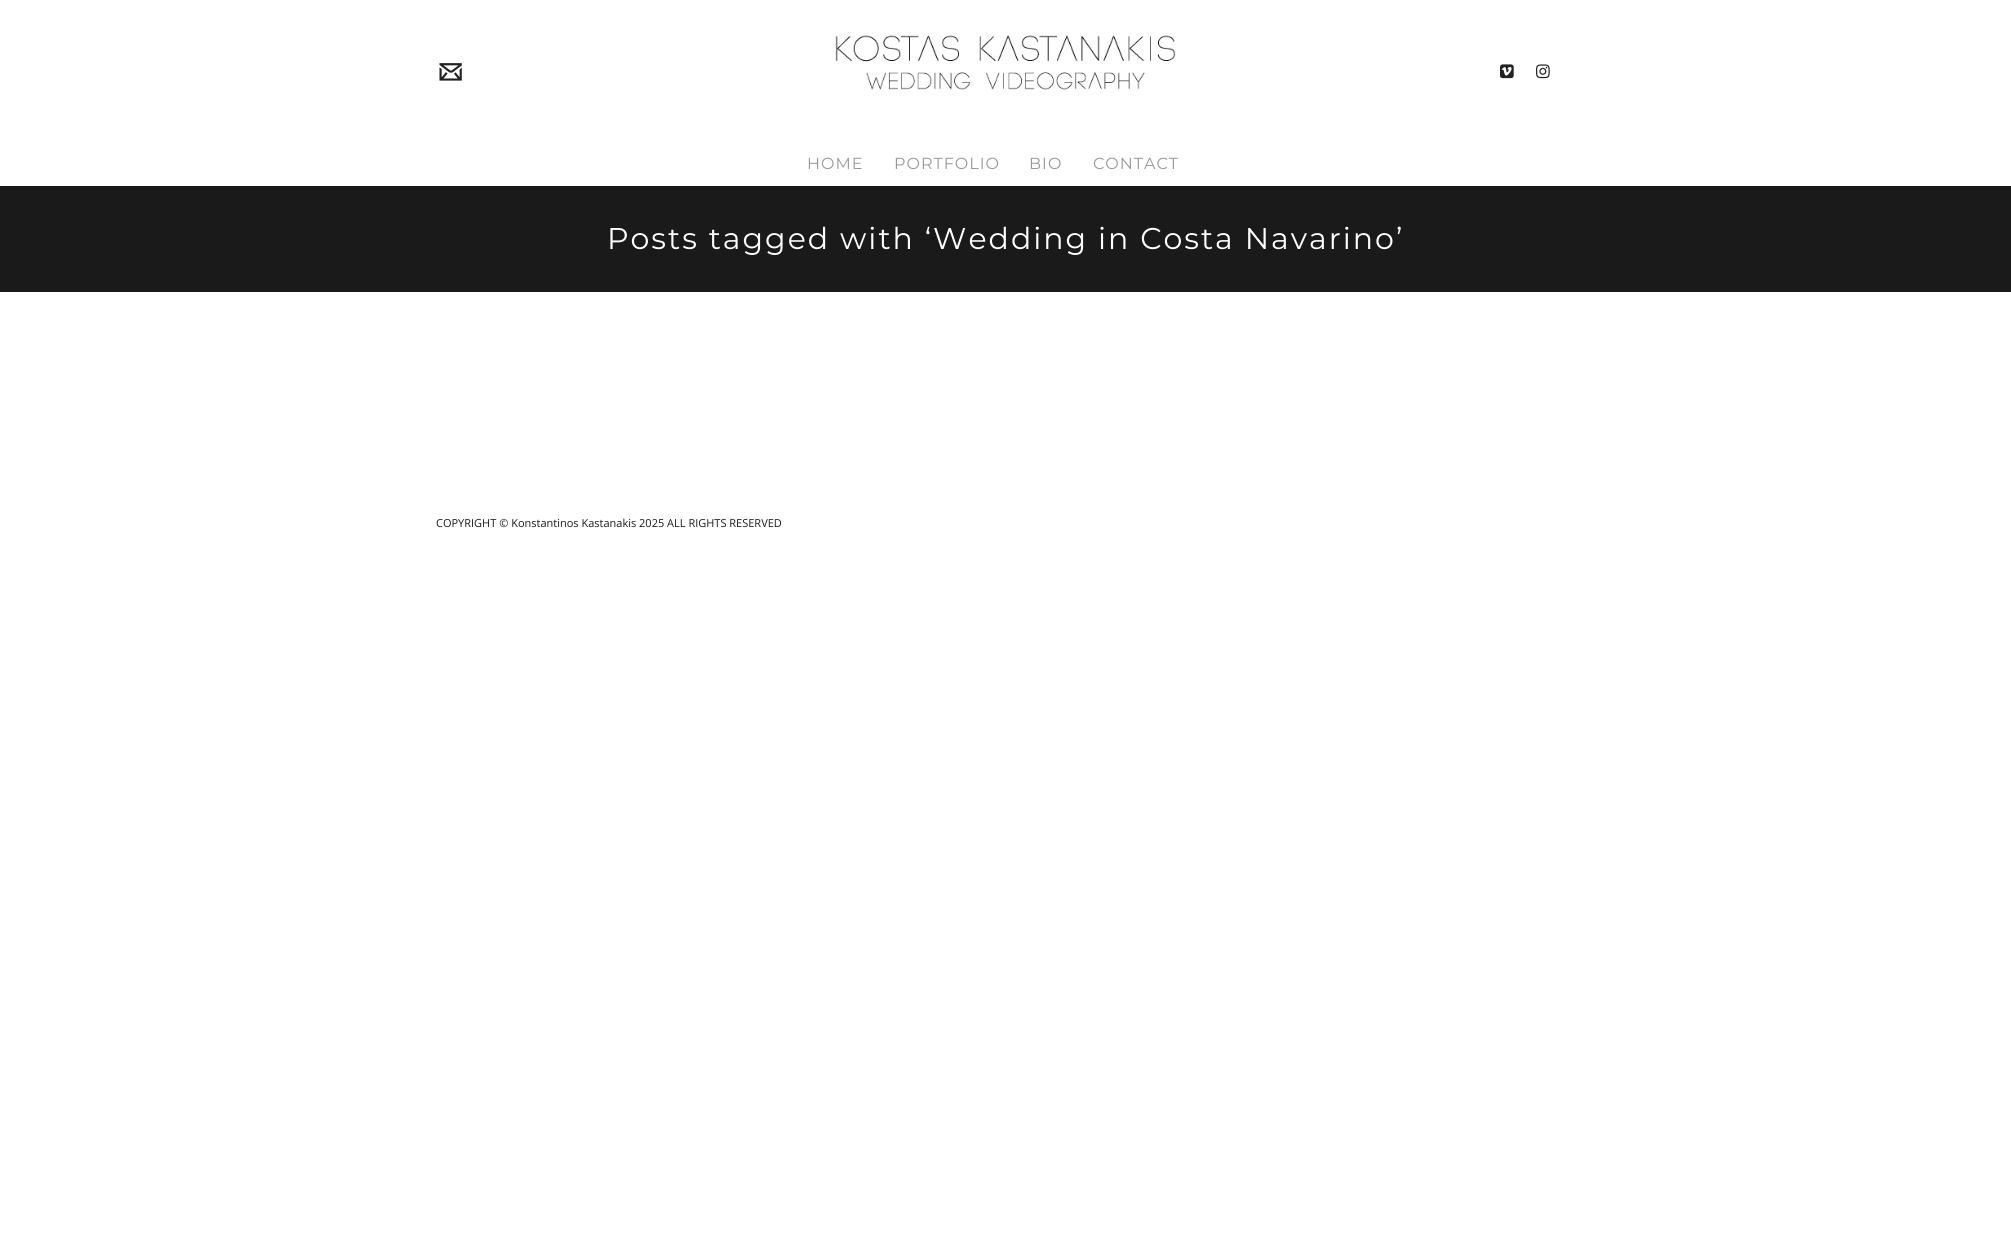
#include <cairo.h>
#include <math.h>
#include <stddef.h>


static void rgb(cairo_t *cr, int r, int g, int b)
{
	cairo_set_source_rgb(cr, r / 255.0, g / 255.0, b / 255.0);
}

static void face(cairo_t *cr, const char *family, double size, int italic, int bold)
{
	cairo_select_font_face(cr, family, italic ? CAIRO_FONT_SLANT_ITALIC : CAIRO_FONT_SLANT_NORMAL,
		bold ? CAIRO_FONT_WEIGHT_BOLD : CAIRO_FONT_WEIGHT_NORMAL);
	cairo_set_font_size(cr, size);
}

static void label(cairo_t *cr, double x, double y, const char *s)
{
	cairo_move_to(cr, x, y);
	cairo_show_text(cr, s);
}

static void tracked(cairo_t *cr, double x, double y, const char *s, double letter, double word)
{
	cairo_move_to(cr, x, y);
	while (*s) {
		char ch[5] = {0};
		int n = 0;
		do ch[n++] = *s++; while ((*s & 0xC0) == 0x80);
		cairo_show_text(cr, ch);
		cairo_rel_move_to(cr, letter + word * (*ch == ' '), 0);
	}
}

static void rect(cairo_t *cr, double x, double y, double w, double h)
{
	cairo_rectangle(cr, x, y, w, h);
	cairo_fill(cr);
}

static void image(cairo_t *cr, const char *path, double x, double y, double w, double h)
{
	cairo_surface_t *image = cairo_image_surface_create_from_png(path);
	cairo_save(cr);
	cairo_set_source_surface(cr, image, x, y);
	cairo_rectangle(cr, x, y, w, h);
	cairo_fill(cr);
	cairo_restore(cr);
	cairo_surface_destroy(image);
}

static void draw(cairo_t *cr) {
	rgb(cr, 255, 255, 255);
	cairo_paint(cr);
	image(cr, "image0.png", 439, 63, 23, 18);
	image(cr, "image1.png", 835, 35, 341, 55);
	image(cr, "image2.png", 1500, 64, 14, 15);
	image(cr, "image3.png", 1536, 64, 14, 15);
	face(cr, "Montserrat", 16, 0, 0);
	rgb(cr, 153, 153, 153);
	tracked(cr, 807, 169, "HOME", 1, 0);
	tracked(cr, 894, 169, "PORTFOLIO", 1, 0);
	tracked(cr, 1029, 169, "BIO", 1, 0);
	tracked(cr, 1093, 169, "CONTACT", 1, 0);
	rgb(cr, 26, 26, 26);
	rect(cr, 0, 186, 2011, 106);
	face(cr, "Montserrat", 30, 0, 0);
	rgb(cr, 255, 255, 255);
	tracked(cr, 607, 249, "Posts tagged with ‘Wedding in Costa Navarino’", 2, 0);
	face(cr, "Open Sans", 11, 0, 0);
	rgb(cr, 26, 26, 26);
	label(cr, 436, 527, "COPYRIGHT © Konstantinos Kastanakis 2025 ALL RIGHTS RESERVED");
}

int main(void) {
	cairo_surface_t *surface = cairo_image_surface_create(CAIRO_FORMAT_RGB24, 2011, 1244);
	cairo_t *cr = cairo_create(surface);
	cairo_font_options_t *options = cairo_font_options_create();
	cairo_font_options_set_hint_metrics(options, CAIRO_HINT_METRICS_OFF);
	cairo_font_options_set_hint_style(options, CAIRO_HINT_STYLE_NONE);
	cairo_set_font_options(cr, options);
	cairo_set_miter_limit(cr, 4);
	draw(cr);
	cairo_surface_write_to_png(surface, "render.png");
	cairo_font_options_destroy(options);
	cairo_destroy(cr);
	cairo_surface_destroy(surface);
	return 0;
}
